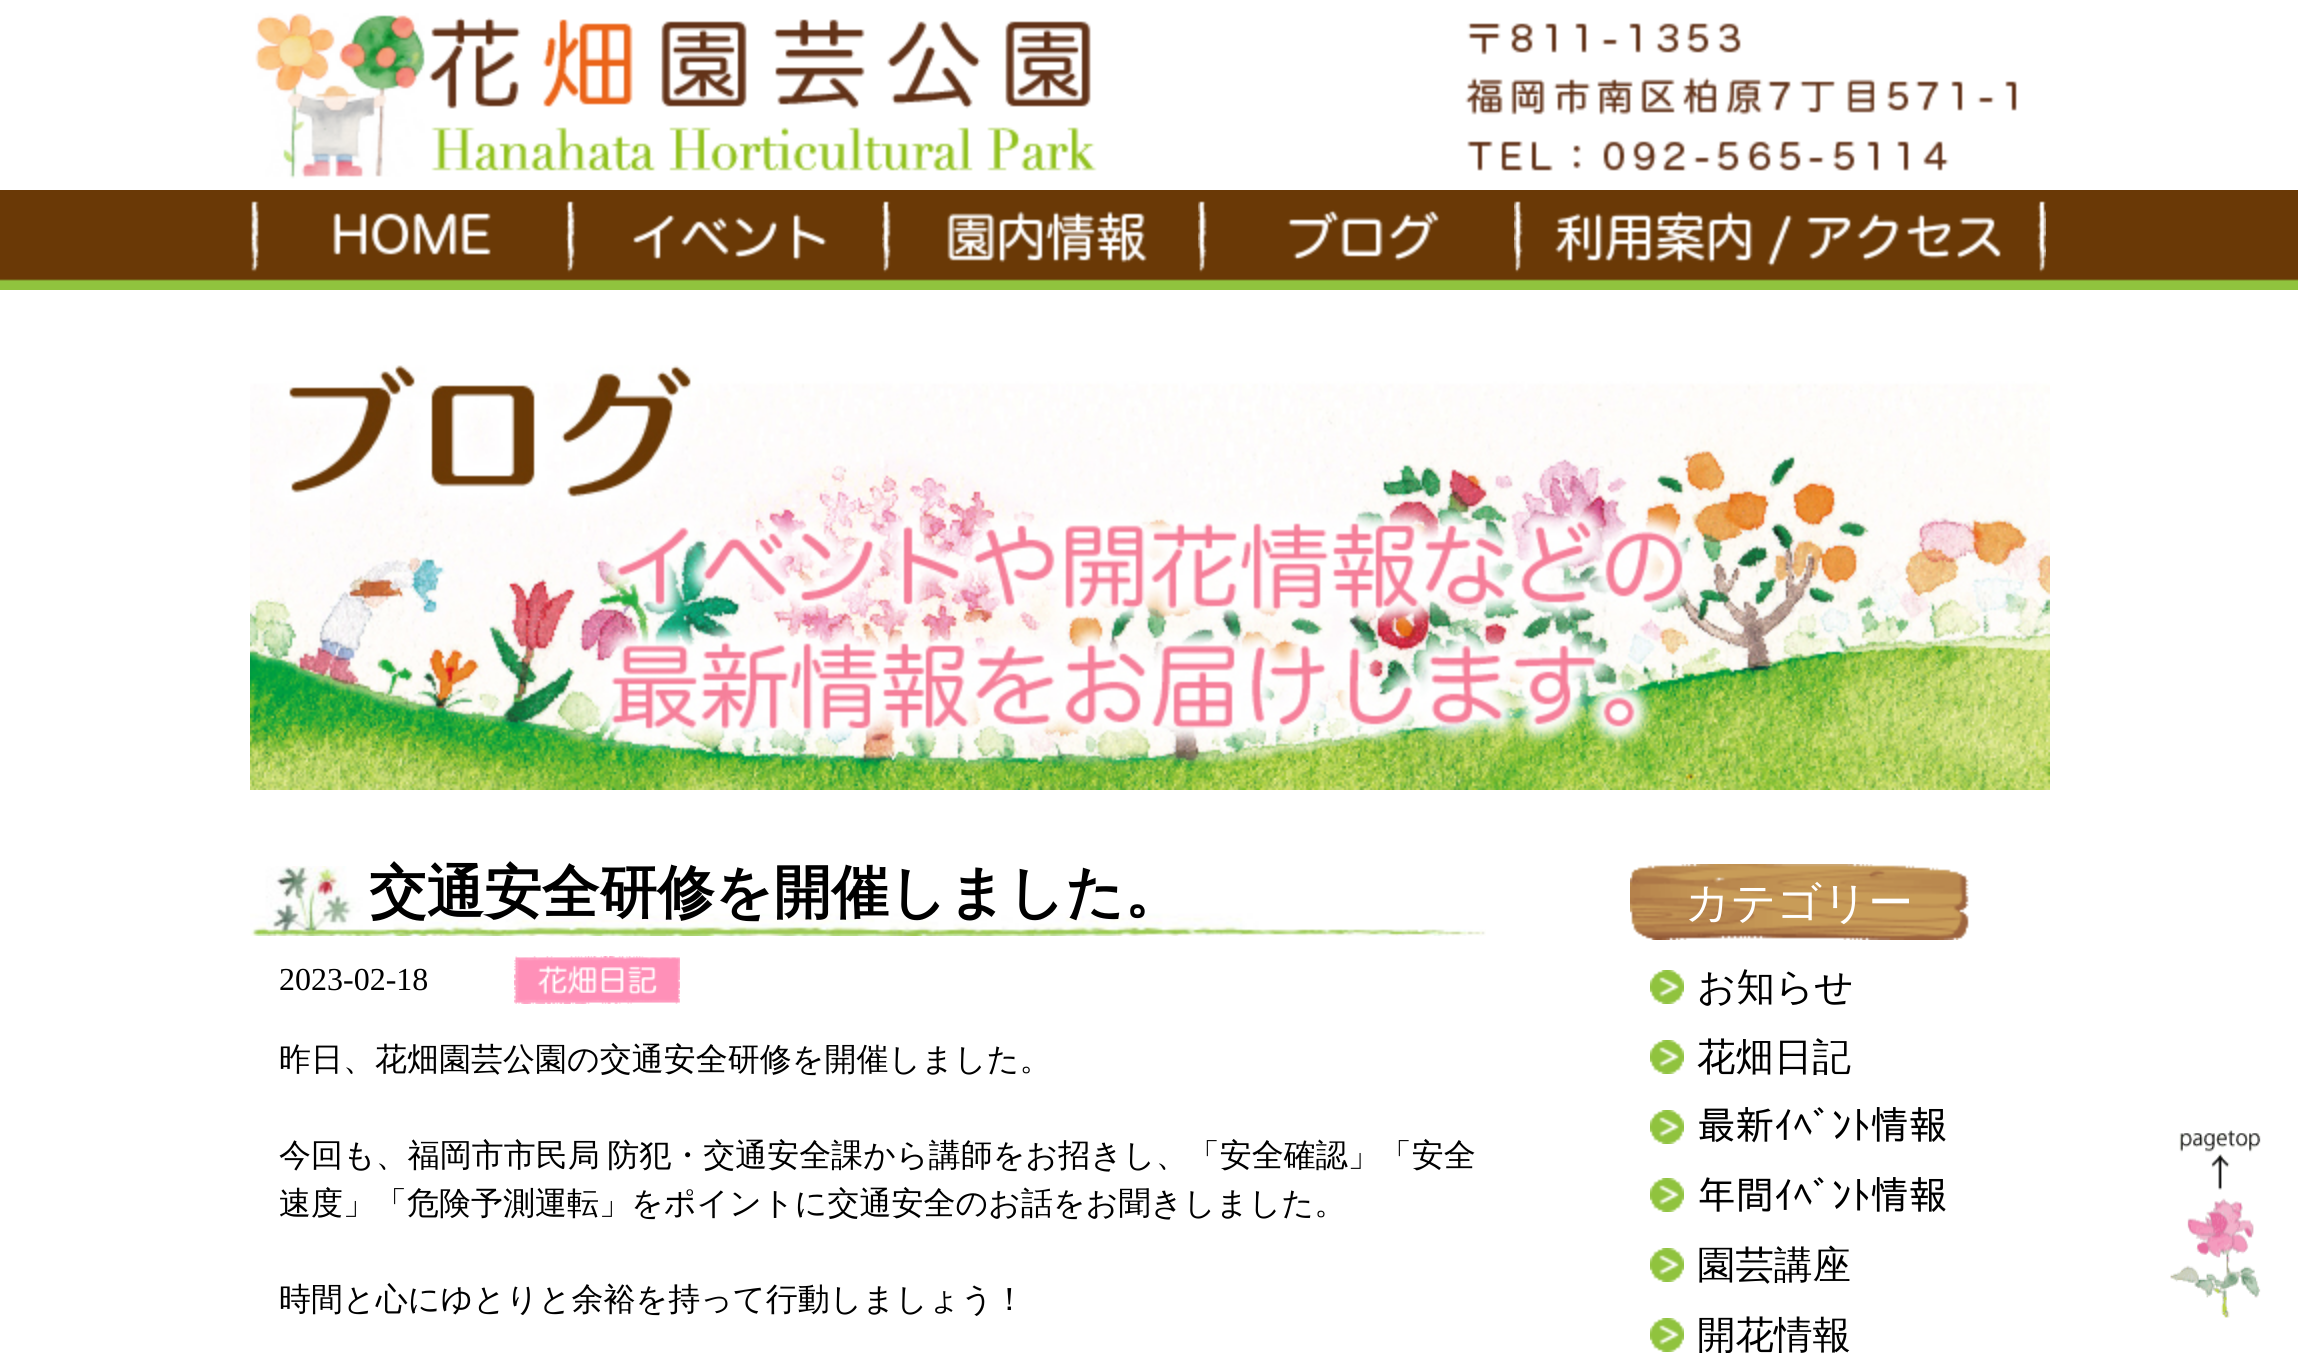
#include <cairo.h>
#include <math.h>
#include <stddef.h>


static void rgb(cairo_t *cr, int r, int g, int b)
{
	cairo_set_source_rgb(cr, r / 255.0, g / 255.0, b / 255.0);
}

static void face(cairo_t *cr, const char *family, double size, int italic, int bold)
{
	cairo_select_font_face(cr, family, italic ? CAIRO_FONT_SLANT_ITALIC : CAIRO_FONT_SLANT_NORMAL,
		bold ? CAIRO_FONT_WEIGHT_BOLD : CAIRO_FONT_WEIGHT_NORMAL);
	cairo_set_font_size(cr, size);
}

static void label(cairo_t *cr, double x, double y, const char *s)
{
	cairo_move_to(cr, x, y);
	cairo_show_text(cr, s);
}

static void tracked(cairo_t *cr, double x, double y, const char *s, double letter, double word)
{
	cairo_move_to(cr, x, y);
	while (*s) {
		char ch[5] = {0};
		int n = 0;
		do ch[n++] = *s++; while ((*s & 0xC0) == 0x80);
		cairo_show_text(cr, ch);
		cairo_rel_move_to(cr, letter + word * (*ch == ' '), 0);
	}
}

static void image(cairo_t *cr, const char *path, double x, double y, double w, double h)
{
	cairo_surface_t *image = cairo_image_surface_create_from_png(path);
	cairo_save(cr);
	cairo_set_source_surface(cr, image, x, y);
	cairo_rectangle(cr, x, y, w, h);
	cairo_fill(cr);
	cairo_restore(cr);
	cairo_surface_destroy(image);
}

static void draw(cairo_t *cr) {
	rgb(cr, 255, 255, 255);
	cairo_paint(cr);
	image(cr, "image0.png", 255, 13, 1762, 166);
	image(cr, "image1.png", 0, 190, 2298, 100);
	image(cr, "image2.png", 251, 201, 240, 71);
	image(cr, "image3.png", 566, 201, 261, 72);
	image(cr, "image4.png", 882, 201, 265, 72);
	image(cr, "image5.png", 1198, 201, 241, 72);
	image(cr, "image6.png", 1514, 201, 532, 72);
	image(cr, "image7.png", 250, 365, 1800, 425);
	image(cr, "image8.png", 250, 866, 1236, 70);
	face(cr, "WenQuanYi Zen Hei", 57.6, 0, 1);
	rgb(cr, 0, 0, 0);
	label(cr, 369, 912, "交通安全研修を開催しました。");
	image(cr, "image9.png", 514, 956, 166, 48);
	face(cr, "Liberation Serif", 32, 0, 0);
	label(cr, 279, 990, "2023-02-18");
	face(cr, "WenQuanYi Zen Hei Medium", 32, 0, 0);
	label(cr, 279, 1070, "昨日、花畑園芸公園の交通安全研修を開催しました。");
	tracked(cr, 279, 1166, "今回も、福岡市市民局 防犯・交通安全課から講師をお招きし、「安全確認」「安全", 0, -2);
	label(cr, 279, 1214, "速度」「危険予測運転」をポイントに交通安全のお話をお聞きしました。");
	label(cr, 279, 1310, "時間と心にゆとりと余裕を持って行動しましょう！");
	image(cr, "image10.png", 1630, 864, 339, 76);
	face(cr, "WenQuanYi Zen Hei Medium", 44.75, 0, 0);
	rgb(cr, 255, 255, 255);
	label(cr, 1685, 918, "カテゴリー");
	image(cr, "image11.png", 1650, 970, 34, 34);
	face(cr, "WenQuanYi Zen Hei Medium", 38.5, 0, 0);
	rgb(cr, 0, 0, 0);
	label(cr, 1697, 1000, "お知らせ");
	image(cr, "image11.png", 1650, 1040, 34, 34);
	label(cr, 1697, 1070, "花畑日記");
	image(cr, "image11.png", 1650, 1110, 34, 34);
	face(cr, "IPAPGothic", 38.5, 0, 0);
	label(cr, 1697, 1139, "最新ｲﾍﾞﾝﾄ情報");
	image(cr, "image11.png", 1650, 1178, 34, 34);
	label(cr, 1697, 1209, "年間ｲﾍﾞﾝﾄ情報");
	image(cr, "image11.png", 1650, 1248, 34, 34);
	face(cr, "WenQuanYi Zen Hei Medium", 38.5, 0, 0);
	label(cr, 1697, 1278, "園芸講座");
	image(cr, "image11.png", 1650, 1318, 34, 34);
	label(cr, 1697, 1348, "開花情報");
	image(cr, "image12.png", 2170, 1130, 91, 188);
}

int main(void) {
	cairo_surface_t *surface = cairo_image_surface_create(CAIRO_FORMAT_RGB24, 2298, 1353);
	cairo_t *cr = cairo_create(surface);
	cairo_font_options_t *options = cairo_font_options_create();
	cairo_font_options_set_hint_metrics(options, CAIRO_HINT_METRICS_OFF);
	cairo_font_options_set_hint_style(options, CAIRO_HINT_STYLE_NONE);
	cairo_set_font_options(cr, options);
	cairo_set_miter_limit(cr, 4);
	draw(cr);
	cairo_surface_write_to_png(surface, "render.png");
	cairo_font_options_destroy(options);
	cairo_destroy(cr);
	cairo_surface_destroy(surface);
	return 0;
}
